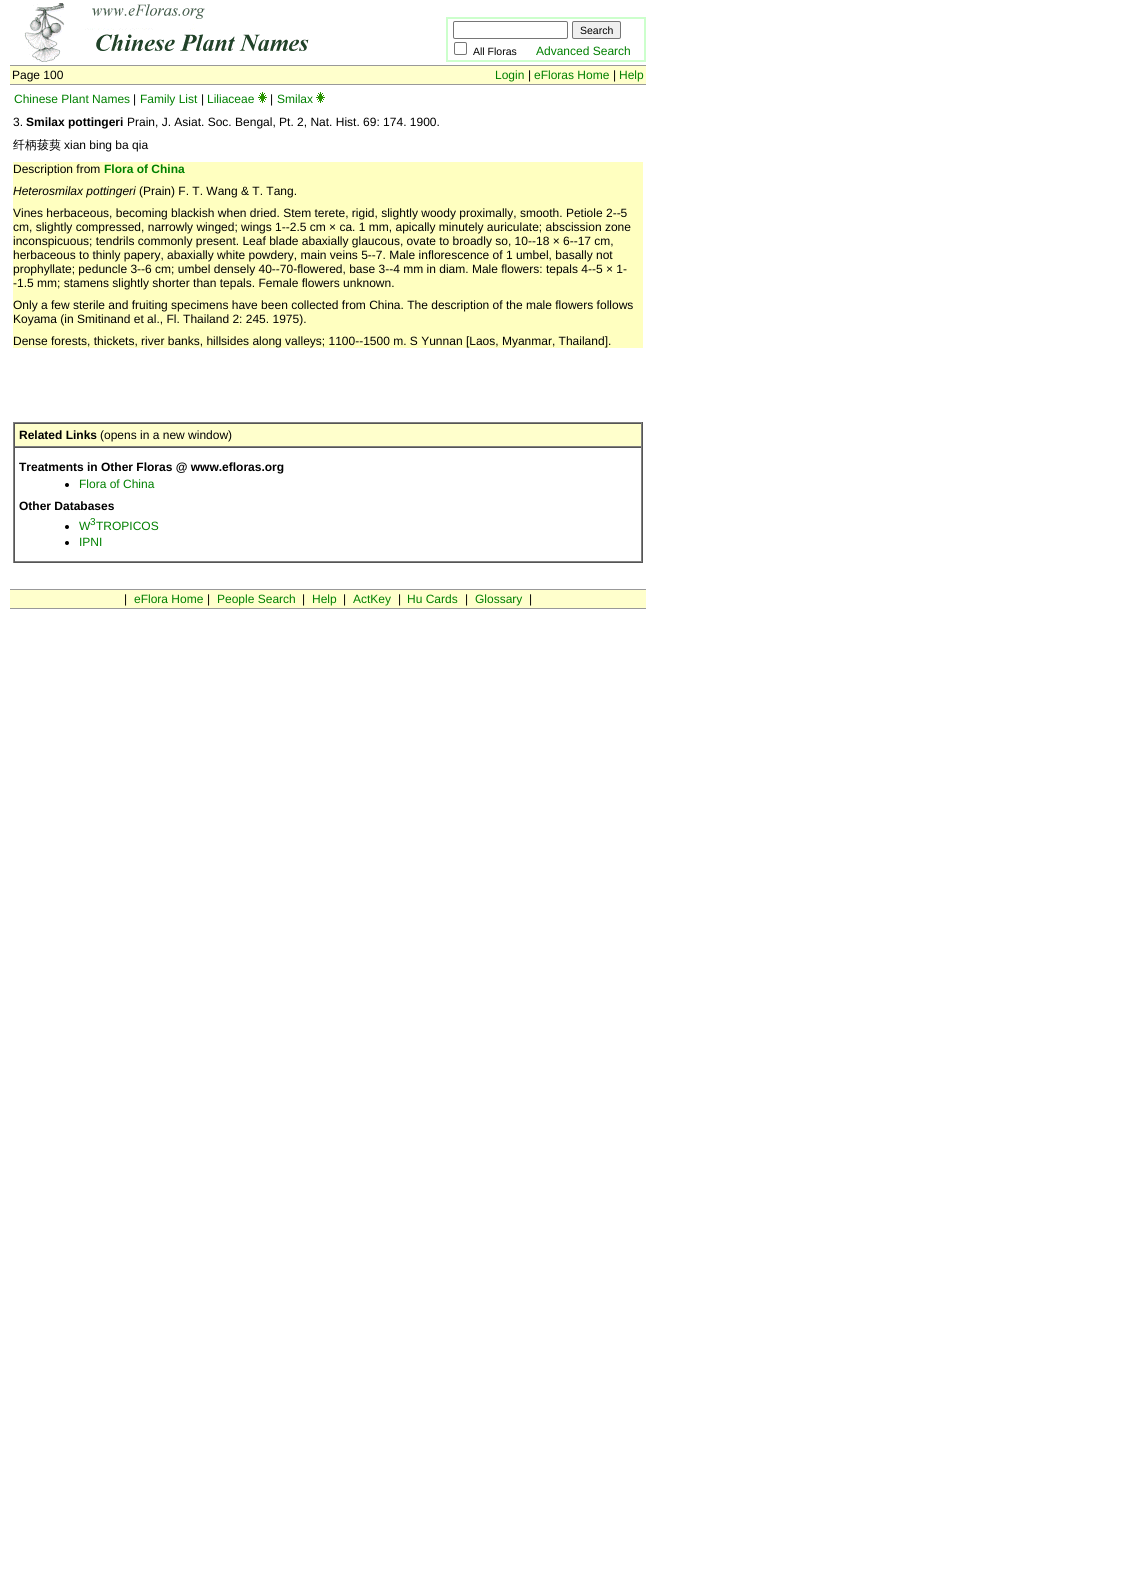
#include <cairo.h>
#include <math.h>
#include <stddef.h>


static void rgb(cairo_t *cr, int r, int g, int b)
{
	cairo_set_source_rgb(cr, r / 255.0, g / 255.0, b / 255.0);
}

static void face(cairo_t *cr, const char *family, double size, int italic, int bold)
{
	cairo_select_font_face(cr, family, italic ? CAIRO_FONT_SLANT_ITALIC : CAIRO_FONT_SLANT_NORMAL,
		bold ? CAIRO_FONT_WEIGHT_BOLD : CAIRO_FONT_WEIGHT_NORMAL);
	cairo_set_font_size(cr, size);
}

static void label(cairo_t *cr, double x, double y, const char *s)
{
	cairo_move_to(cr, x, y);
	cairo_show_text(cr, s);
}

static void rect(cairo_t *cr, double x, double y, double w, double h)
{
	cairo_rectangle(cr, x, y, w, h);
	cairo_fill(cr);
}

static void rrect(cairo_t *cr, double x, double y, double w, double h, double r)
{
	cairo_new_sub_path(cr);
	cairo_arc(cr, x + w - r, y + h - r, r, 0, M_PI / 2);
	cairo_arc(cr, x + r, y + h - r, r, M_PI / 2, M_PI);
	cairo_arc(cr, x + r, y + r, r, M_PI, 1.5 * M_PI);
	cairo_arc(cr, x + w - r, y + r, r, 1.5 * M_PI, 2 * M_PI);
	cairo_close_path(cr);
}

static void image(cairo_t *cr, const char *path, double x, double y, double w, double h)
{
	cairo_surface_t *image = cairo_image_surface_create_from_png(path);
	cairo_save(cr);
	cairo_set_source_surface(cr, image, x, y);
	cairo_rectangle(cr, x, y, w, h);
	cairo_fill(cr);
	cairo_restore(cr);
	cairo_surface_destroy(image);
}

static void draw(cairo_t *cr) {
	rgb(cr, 255, 255, 255);
	cairo_paint(cr);
	image(cr, "image0.png", 24, 3, 285, 59);
	cairo_rectangle(cr, 446.5, 17.5, 199, 44);
	rgb(cr, 204, 255, 204);
	cairo_set_line_width(cr, 1);
	cairo_stroke(cr);
	cairo_rectangle(cr, 447.5, 18.5, 197, 42);
	cairo_stroke(cr);
	rrect(cr, 453.5, 21.5, 114, 17, 1.5);
	rgb(cr, 118, 118, 118);
	cairo_stroke(cr);
	rgb(cr, 239, 239, 239);
	rrect(cr, 572.5, 21.5, 48, 17, 1.5);
	cairo_fill_preserve(cr);
	rgb(cr, 118, 118, 118);
	cairo_stroke(cr);
	face(cr, "Liberation Sans", 10.5, 0, 0);
	rgb(cr, 0, 0, 0);
	label(cr, 580, 34, "Search");
	rrect(cr, 454.5, 42.5, 12, 12, 1.5);
	rgb(cr, 118, 118, 118);
	cairo_stroke(cr);
	rgb(cr, 0, 0, 0);
	label(cr, 473, 55, "All Floras");
	face(cr, "Liberation Sans", 12, 0, 0);
	rgb(cr, 0, 128, 0);
	label(cr, 536, 55, "Advanced Search");
	rgb(cr, 153, 153, 153);
	rect(cr, 10, 65, 636, 1);
	rgb(cr, 255, 255, 204);
	rect(cr, 10, 66, 636, 18);
	rgb(cr, 0, 0, 0);
	label(cr, 12, 79, "Page 100");
	rgb(cr, 0, 128, 0);
	label(cr, 495, 79, "Login");
	rgb(cr, 0, 0, 0);
	label(cr, 528, 79, "|");
	rgb(cr, 0, 128, 0);
	label(cr, 534, 79, "eFloras Home");
	rgb(cr, 0, 0, 0);
	label(cr, 613, 79, "|");
	rgb(cr, 0, 128, 0);
	label(cr, 619, 79, "Help");
	rgb(cr, 153, 153, 153);
	rect(cr, 10, 84, 636, 1);
	rgb(cr, 0, 128, 0);
	label(cr, 14, 103, "Chinese Plant Names");
	rgb(cr, 0, 0, 0);
	label(cr, 133, 103, "|");
	rgb(cr, 0, 128, 0);
	label(cr, 140, 103, "Family List");
	rgb(cr, 0, 0, 0);
	label(cr, 201, 103, "|");
	rgb(cr, 0, 128, 0);
	label(cr, 207, 103, "Liliaceae");
	image(cr, "image1.png", 258, 92, 9, 11);
	rgb(cr, 0, 0, 0);
	label(cr, 270, 103, "|");
	rgb(cr, 0, 128, 0);
	label(cr, 277, 103, "Smilax");
	image(cr, "image1.png", 316, 92, 9, 11);
	rgb(cr, 0, 0, 0);
	label(cr, 13, 126, "3.");
	face(cr, "Liberation Sans", 12, 0, 1);
	label(cr, 26, 126, "Smilax pottingeri");
	face(cr, "Liberation Sans", 12, 0, 0);
	label(cr, 127, 126, "Prain, J. Asiat. Soc. Bengal, Pt. 2, Nat. Hist. 69: 174. 1900.");
	face(cr, "WenQuanYi Zen Hei Medium", 12, 0, 0);
	label(cr, 13, 149, "纤柄菝葜");
	face(cr, "Liberation Sans", 12, 0, 0);
	label(cr, 64, 149, "xian bing ba qia");
	rgb(cr, 255, 255, 192);
	rect(cr, 13, 162, 630, 186);
	rgb(cr, 0, 0, 0);
	label(cr, 13, 173, "Description from");
	face(cr, "Liberation Sans", 12, 0, 1);
	rgb(cr, 0, 128, 0);
	label(cr, 104, 173, "Flora of China");
	face(cr, "Liberation Sans", 12, 1, 0);
	rgb(cr, 0, 0, 0);
	label(cr, 13, 195, "Heterosmilax pottingeri");
	face(cr, "Liberation Sans", 12, 0, 0);
	label(cr, 139, 195, "(Prain) F. T. Wang & T. Tang.");
	label(cr, 13, 217, "Vines herbaceous, becoming blackish when dried. Stem terete, rigid, slightly woody proximally, smooth. Petiole 2--5");
	label(cr, 13, 231, "cm, slightly compressed, narrowly winged; wings 1--2.5 cm × ca. 1 mm, apically minutely auriculate; abscission zone");
	label(cr, 13, 245, "inconspicuous; tendrils commonly present. Leaf blade abaxially glaucous, ovate to broadly so, 10--18 × 6--17 cm,");
	label(cr, 13, 259, "herbaceous to thinly papery, abaxially white powdery, main veins 5--7. Male inflorescence of 1 umbel, basally not");
	label(cr, 13, 273, "prophyllate; peduncle 3--6 cm; umbel densely 40--70-flowered, base 3--4 mm in diam. Male flowers: tepals 4--5 × 1-");
	label(cr, 13, 287, "-1.5 mm; stamens slightly shorter than tepals. Female flowers unknown.");
	label(cr, 13, 309, "Only a few sterile and fruiting specimens have been collected from China. The description of the male flowers follows");
	label(cr, 13, 323, "Koyama (in Smitinand et al., Fl. Thailand 2: 245. 1975).");
	label(cr, 13, 345, "Dense forests, thickets, river banks, hillsides along valleys; 1100--1500 m. S Yunnan [Laos, Myanmar, Thailand].");
	rgb(cr, 128, 128, 128);
	rect(cr, 13, 422, 630, 1);
	rgb(cr, 85, 85, 85);
	rect(cr, 642, 422, 1, 141);
	rect(cr, 13, 562, 630, 1);
	rgb(cr, 128, 128, 128);
	rect(cr, 13, 422, 1, 141);
	rgb(cr, 255, 255, 204);
	rect(cr, 15, 424, 626, 22);
	rgb(cr, 85, 85, 85);
	rect(cr, 14, 423, 628, 1);
	rgb(cr, 128, 128, 128);
	rect(cr, 641, 423, 1, 24);
	rect(cr, 14, 446, 628, 1);
	rgb(cr, 85, 85, 85);
	rect(cr, 14, 423, 1, 24);
	face(cr, "Liberation Sans", 12, 0, 1);
	rgb(cr, 0, 0, 0);
	label(cr, 19, 439, "Related Links");
	face(cr, "Liberation Sans", 12, 0, 0);
	label(cr, 100, 439, "(opens in a new window)");
	rgb(cr, 85, 85, 85);
	rect(cr, 14, 447, 628, 1);
	rgb(cr, 128, 128, 128);
	rect(cr, 641, 447, 1, 115);
	rect(cr, 14, 561, 628, 1);
	rgb(cr, 85, 85, 85);
	rect(cr, 14, 447, 1, 115);
	face(cr, "Liberation Sans", 12, 0, 1);
	rgb(cr, 0, 0, 0);
	label(cr, 19, 471, "Treatments in Other Floras @ www.efloras.org");
	cairo_new_path(cr);
	cairo_arc(cr, 67, 485, 2, 0, 2 * M_PI);
	cairo_fill(cr);
	face(cr, "Liberation Sans", 12, 0, 0);
	rgb(cr, 0, 128, 0);
	label(cr, 79, 488, "Flora of China");
	face(cr, "Liberation Sans", 12, 0, 1);
	rgb(cr, 0, 0, 0);
	label(cr, 19, 510, "Other Databases");
	cairo_new_path(cr);
	cairo_arc(cr, 67, 527, 2, 0, 2 * M_PI);
	cairo_fill(cr);
	face(cr, "Liberation Sans", 12, 0, 0);
	rgb(cr, 0, 128, 0);
	label(cr, 79, 530, "W");
	face(cr, "Liberation Sans", 10, 0, 0);
	label(cr, 90, 525, "3");
	face(cr, "Liberation Sans", 12, 0, 0);
	label(cr, 96, 530, "TROPICOS");
	rgb(cr, 0, 0, 0);
	cairo_new_path(cr);
	cairo_arc(cr, 67, 543, 2, 0, 2 * M_PI);
	cairo_fill(cr);
	rgb(cr, 0, 128, 0);
	label(cr, 79, 546, "IPNI");
	rgb(cr, 153, 153, 153);
	rect(cr, 10, 589, 636, 1);
	rgb(cr, 255, 255, 204);
	rect(cr, 10, 590, 636, 18);
	rgb(cr, 0, 0, 0);
	label(cr, 124, 603, "|");
	rgb(cr, 0, 128, 0);
	label(cr, 134, 603, "eFlora Home");
	rgb(cr, 0, 0, 0);
	label(cr, 207, 603, "|");
	rgb(cr, 0, 128, 0);
	label(cr, 217, 603, "People Search");
	rgb(cr, 0, 0, 0);
	label(cr, 302, 603, "|");
	rgb(cr, 0, 128, 0);
	label(cr, 312, 603, "Help");
	rgb(cr, 0, 0, 0);
	label(cr, 343, 603, "|");
	rgb(cr, 0, 128, 0);
	label(cr, 353, 603, "ActKey");
	rgb(cr, 0, 0, 0);
	label(cr, 398, 603, "|");
	rgb(cr, 0, 128, 0);
	label(cr, 407, 603, "Hu Cards");
	rgb(cr, 0, 0, 0);
	label(cr, 465, 603, "|");
	rgb(cr, 0, 128, 0);
	label(cr, 475, 603, "Glossary");
	rgb(cr, 0, 0, 0);
	label(cr, 529, 603, "|");
	rgb(cr, 153, 153, 153);
	rect(cr, 10, 608, 636, 1);
}

int main(void) {
	cairo_surface_t *surface = cairo_image_surface_create(CAIRO_FORMAT_RGB24, 1126, 1586);
	cairo_t *cr = cairo_create(surface);
	cairo_font_options_t *options = cairo_font_options_create();
	cairo_font_options_set_hint_metrics(options, CAIRO_HINT_METRICS_OFF);
	cairo_font_options_set_hint_style(options, CAIRO_HINT_STYLE_NONE);
	cairo_set_font_options(cr, options);
	cairo_set_miter_limit(cr, 4);
	draw(cr);
	cairo_surface_write_to_png(surface, "render.png");
	cairo_font_options_destroy(options);
	cairo_destroy(cr);
	cairo_surface_destroy(surface);
	return 0;
}
